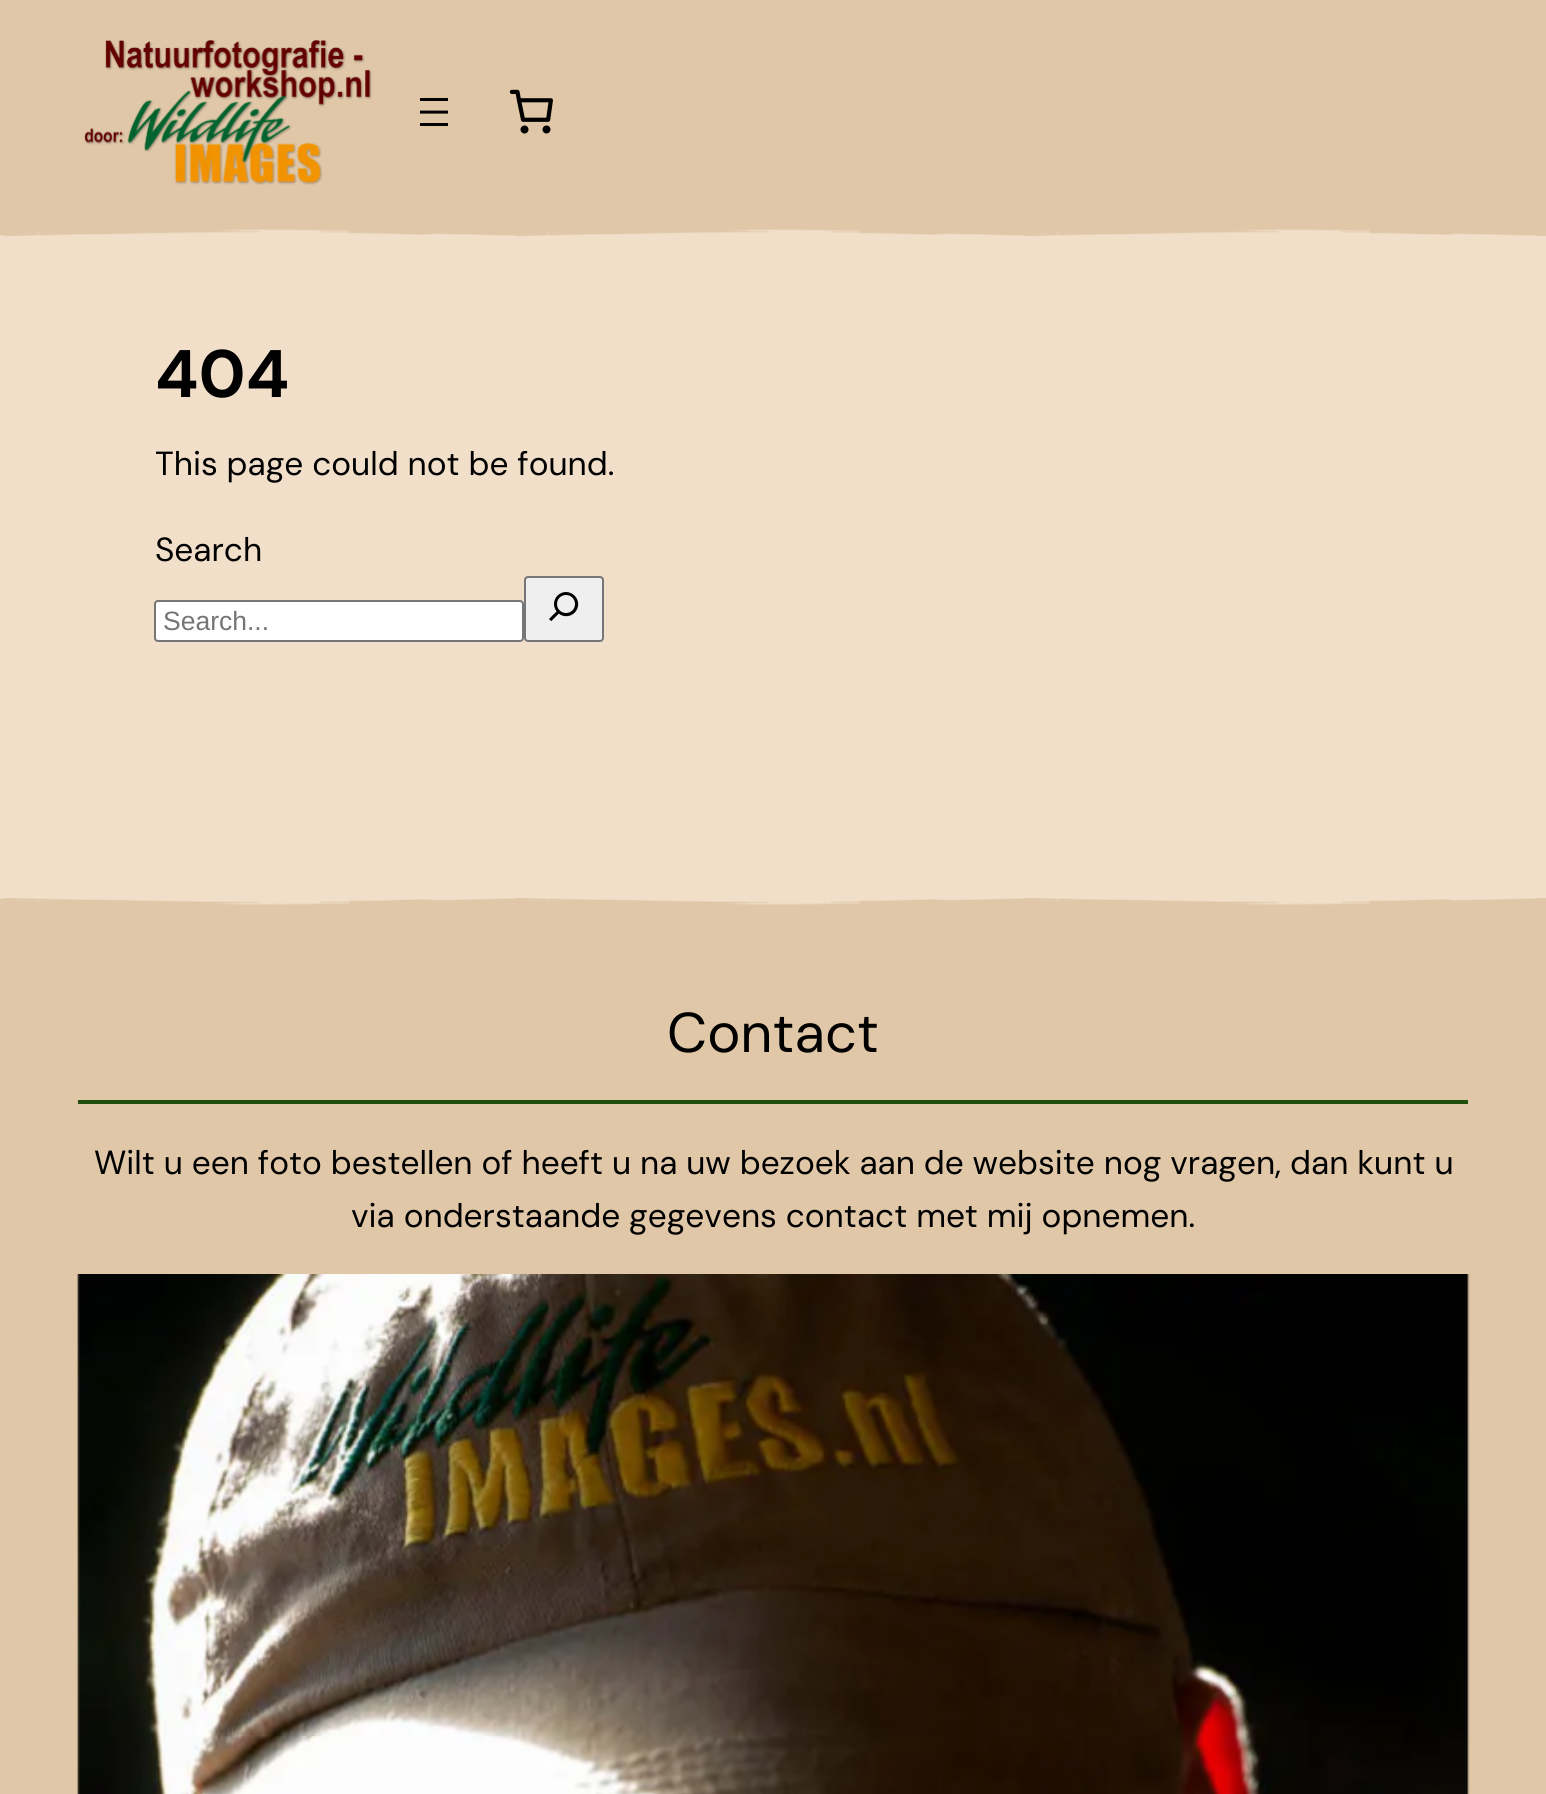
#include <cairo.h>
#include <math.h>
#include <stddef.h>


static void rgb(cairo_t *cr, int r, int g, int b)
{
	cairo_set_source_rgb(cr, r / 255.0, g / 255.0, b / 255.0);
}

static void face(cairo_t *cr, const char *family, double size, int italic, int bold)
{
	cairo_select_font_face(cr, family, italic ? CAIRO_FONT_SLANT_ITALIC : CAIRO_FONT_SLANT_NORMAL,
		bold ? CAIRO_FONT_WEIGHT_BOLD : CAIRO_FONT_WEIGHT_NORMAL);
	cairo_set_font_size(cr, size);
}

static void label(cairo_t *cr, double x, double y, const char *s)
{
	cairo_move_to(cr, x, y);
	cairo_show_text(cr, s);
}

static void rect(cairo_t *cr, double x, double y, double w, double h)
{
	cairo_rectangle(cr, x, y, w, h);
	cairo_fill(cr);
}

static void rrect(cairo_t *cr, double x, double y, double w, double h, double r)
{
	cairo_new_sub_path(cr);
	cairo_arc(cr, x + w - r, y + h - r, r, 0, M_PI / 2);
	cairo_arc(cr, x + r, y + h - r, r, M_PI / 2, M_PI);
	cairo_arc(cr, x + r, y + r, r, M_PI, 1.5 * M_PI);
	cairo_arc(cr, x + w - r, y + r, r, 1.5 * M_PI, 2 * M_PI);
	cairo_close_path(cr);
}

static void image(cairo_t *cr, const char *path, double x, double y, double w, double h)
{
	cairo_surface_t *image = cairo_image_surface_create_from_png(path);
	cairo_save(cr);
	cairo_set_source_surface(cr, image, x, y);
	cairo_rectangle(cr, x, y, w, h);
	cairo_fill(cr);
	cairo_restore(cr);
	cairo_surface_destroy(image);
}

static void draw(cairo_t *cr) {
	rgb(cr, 241, 223, 202);
	cairo_paint(cr);
	rgb(cr, 224, 199, 168);
	rect(cr, 0, 0, 1546, 224);
	image(cr, "image0.png", 84, 40, 288, 145);
	image(cr, "image1.png", 420, 98, 28, 28);
	image(cr, "image2.png", 509, 89, 44, 45);
	image(cr, "image3.png", 0, 224, 1546, 12);
	face(cr, "DM Sans", 67, 0, 1);
	rgb(cr, 0, 0, 0);
	label(cr, 155, 397, "404");
	face(cr, "DM Sans", 33.4, 0, 0);
	label(cr, 155, 475, "This page could not be found.");
	label(cr, 155, 561, "Search");
	rgb(cr, 255, 255, 255);
	rrect(cr, 155, 601, 368, 40, 3);
	cairo_fill_preserve(cr);
	rgb(cr, 118, 118, 118);
	cairo_stroke(cr);
	face(cr, "Liberation Sans", 26.5, 0, 0);
	rgb(cr, 117, 117, 117);
	label(cr, 163, 630, "Search...");
	rgb(cr, 239, 239, 239);
	rrect(cr, 525, 577, 78, 64, 3);
	cairo_fill_preserve(cr);
	rgb(cr, 118, 118, 118);
	cairo_stroke(cr);
	image(cr, "image4.png", 549, 592, 30, 30);
	image(cr, "image5.png", 0, 898, 1546, 12);
	rgb(cr, 224, 199, 168);
	rect(cr, 0, 910, 1546, 884);
	face(cr, "DM Sans", 56, 0, 0);
	rgb(cr, 0, 0, 0);
	label(cr, 667, 1052, "Contact");
	rgb(cr, 32, 79, 13);
	rect(cr, 78, 1100, 1390, 4);
	face(cr, "DM Sans", 33.4, 0, 0);
	rgb(cr, 0, 0, 0);
	label(cr, 94, 1174, "Wilt u een foto bestellen of heeft u na uw bezoek aan de website nog vragen, dan kunt u");
	label(cr, 351, 1227, "via onderstaande gegevens contact met mij opnemen.");
	image(cr, "image6.png", 77, 1274, 1393, 520);
}

int main(void) {
	cairo_surface_t *surface = cairo_image_surface_create(CAIRO_FORMAT_RGB24, 1546, 1794);
	cairo_t *cr = cairo_create(surface);
	cairo_font_options_t *options = cairo_font_options_create();
	cairo_font_options_set_hint_metrics(options, CAIRO_HINT_METRICS_OFF);
	cairo_font_options_set_hint_style(options, CAIRO_HINT_STYLE_NONE);
	cairo_set_font_options(cr, options);
	cairo_set_miter_limit(cr, 4);
	draw(cr);
	cairo_surface_write_to_png(surface, "render.png");
	cairo_font_options_destroy(options);
	cairo_destroy(cr);
	cairo_surface_destroy(surface);
	return 0;
}
